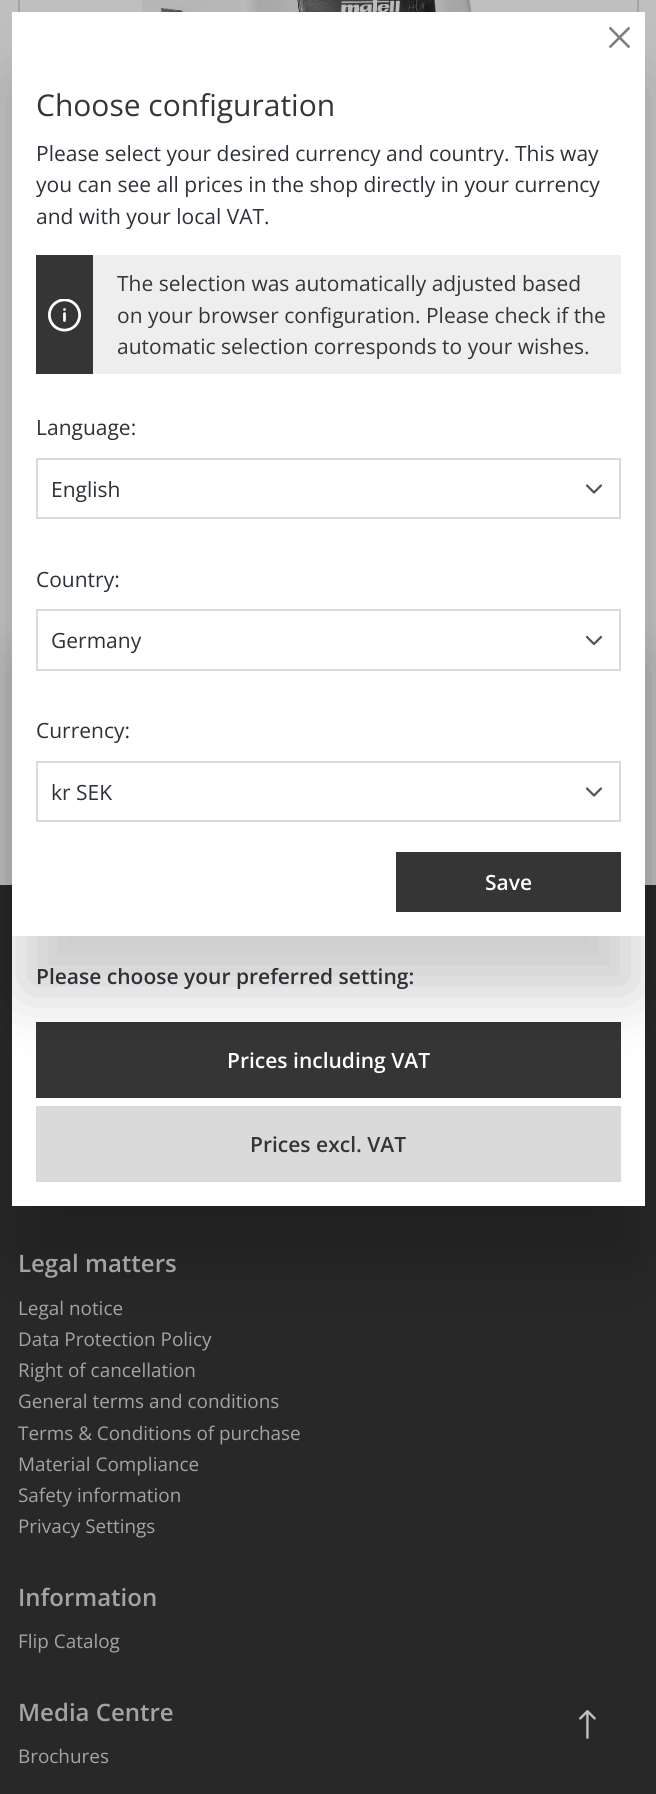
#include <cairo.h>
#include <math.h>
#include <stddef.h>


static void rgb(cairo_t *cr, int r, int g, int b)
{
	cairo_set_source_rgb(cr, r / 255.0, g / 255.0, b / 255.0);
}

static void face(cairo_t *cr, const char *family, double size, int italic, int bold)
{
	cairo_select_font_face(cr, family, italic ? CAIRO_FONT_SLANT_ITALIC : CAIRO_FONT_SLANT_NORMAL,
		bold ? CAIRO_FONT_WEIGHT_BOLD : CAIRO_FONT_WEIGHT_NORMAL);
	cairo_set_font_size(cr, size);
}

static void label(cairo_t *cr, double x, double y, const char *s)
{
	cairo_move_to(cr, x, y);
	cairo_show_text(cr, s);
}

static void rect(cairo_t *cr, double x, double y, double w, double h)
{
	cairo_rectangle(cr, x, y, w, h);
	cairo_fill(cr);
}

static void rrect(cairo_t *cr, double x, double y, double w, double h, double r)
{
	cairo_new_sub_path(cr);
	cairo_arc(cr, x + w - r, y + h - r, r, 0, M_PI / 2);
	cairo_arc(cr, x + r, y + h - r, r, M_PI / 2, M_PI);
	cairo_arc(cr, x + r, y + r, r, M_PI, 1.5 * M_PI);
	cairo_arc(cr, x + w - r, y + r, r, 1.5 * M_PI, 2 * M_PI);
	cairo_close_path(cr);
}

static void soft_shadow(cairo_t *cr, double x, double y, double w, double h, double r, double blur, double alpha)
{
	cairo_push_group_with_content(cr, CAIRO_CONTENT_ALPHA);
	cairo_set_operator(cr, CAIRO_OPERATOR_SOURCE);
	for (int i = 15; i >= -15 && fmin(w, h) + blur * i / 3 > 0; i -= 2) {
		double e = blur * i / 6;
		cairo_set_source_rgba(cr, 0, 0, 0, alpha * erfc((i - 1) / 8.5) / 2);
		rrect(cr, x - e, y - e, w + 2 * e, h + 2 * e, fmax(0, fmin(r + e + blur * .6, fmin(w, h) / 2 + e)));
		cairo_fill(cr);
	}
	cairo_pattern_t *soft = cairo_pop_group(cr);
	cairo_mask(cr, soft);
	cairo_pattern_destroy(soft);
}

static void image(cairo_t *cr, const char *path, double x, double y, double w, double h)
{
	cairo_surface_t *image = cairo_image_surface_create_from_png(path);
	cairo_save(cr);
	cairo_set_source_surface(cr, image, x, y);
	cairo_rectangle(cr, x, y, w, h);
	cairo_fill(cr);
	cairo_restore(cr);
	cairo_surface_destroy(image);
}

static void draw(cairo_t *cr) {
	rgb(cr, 191, 191, 191);
	cairo_paint(cr);
	cairo_rectangle(cr, 19, -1, 619, 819);
	rgb(cr, 164, 164, 164);
	cairo_stroke(cr);
	image(cr, "image0.png", 116, 0, 471, 12);
	rgb(cr, 40, 40, 40);
	rect(cr, 0, 885, 656, 909);
	rgb(cr, 0, 0, 0);
	soft_shadow(cr, 21, 662, 615, 600, 0, 32, 0.2);
	rgb(cr, 255, 255, 255);
	rect(cr, 12, 936, 633, 270);
	rgb(cr, 53, 53, 53);
	rect(cr, 36, 1022, 585, 76);
	rgb(cr, 0, 0, 0);
	soft_shadow(cr, 21, 86, 615, 906, 0, 32, 0.2);
	rgb(cr, 255, 255, 255);
	rect(cr, 12, 12, 633, 924);
	image(cr, "image1.png", 609, 27, 21, 21);
	face(cr, "Open Sans", 30, 0, 0);
	rgb(cr, 53, 53, 53);
	label(cr, 36, 116, "Choose configuration");
	face(cr, "Open Sans", 21, 0, 0);
	rgb(cr, 43, 49, 54);
	label(cr, 36, 161, "Please select your desired currency and country. This way");
	label(cr, 36, 192, "you can see all prices in the shop directly in your currency");
	label(cr, 36, 224, "and with your local VAT.");
	rgb(cr, 53, 53, 53);
	rect(cr, 36, 255, 57, 119);
	image(cr, "image2.png", 48, 299, 33, 33);
	rgb(cr, 238, 238, 238);
	rect(cr, 93, 255, 528, 119);
	rgb(cr, 53, 53, 53);
	label(cr, 117, 291, "The selection was automatically adjusted based");
	label(cr, 117, 323, "on your browser configuration. Please check if the");
	label(cr, 117, 354, "automatic selection corresponds to your wishes.");
	rgb(cr, 43, 49, 54);
	label(cr, 36, 435, "Language:");
	cairo_new_path(cr);
	cairo_move_to(cr, 587, 485.5);
	cairo_line_to(cr, 594, 492.5);
	cairo_line_to(cr, 601, 485.5);
	rgb(cr, 74, 84, 91);
	cairo_set_line_width(cr, 2.2);
	cairo_set_line_cap(cr, CAIRO_LINE_CAP_ROUND);
	cairo_set_line_join(cr, CAIRO_LINE_JOIN_ROUND);
	cairo_stroke(cr);
	cairo_rectangle(cr, 37, 459, 583, 59);
	rgb(cr, 218, 218, 218);
	cairo_set_line_width(cr, 2);
	cairo_set_line_cap(cr, CAIRO_LINE_CAP_BUTT);
	cairo_set_line_join(cr, CAIRO_LINE_JOIN_MITER);
	cairo_stroke(cr);
	rgb(cr, 43, 49, 54);
	label(cr, 51, 497, "English");
	label(cr, 36, 587, "Country:");
	cairo_new_path(cr);
	cairo_move_to(cr, 587, 637);
	cairo_line_to(cr, 594, 644);
	cairo_line_to(cr, 601, 637);
	rgb(cr, 74, 84, 91);
	cairo_set_line_width(cr, 2.2);
	cairo_set_line_cap(cr, CAIRO_LINE_CAP_ROUND);
	cairo_set_line_join(cr, CAIRO_LINE_JOIN_ROUND);
	cairo_stroke(cr);
	cairo_rectangle(cr, 37, 610, 583, 60);
	rgb(cr, 218, 218, 218);
	cairo_set_line_width(cr, 2);
	cairo_set_line_cap(cr, CAIRO_LINE_CAP_BUTT);
	cairo_set_line_join(cr, CAIRO_LINE_JOIN_MITER);
	cairo_stroke(cr);
	rgb(cr, 43, 49, 54);
	label(cr, 51, 648, "Germany");
	label(cr, 36, 738, "Currency:");
	cairo_new_path(cr);
	cairo_move_to(cr, 587, 788.5);
	cairo_line_to(cr, 594, 795.5);
	cairo_line_to(cr, 601, 788.5);
	rgb(cr, 74, 84, 91);
	cairo_set_line_width(cr, 2.2);
	cairo_set_line_cap(cr, CAIRO_LINE_CAP_ROUND);
	cairo_set_line_join(cr, CAIRO_LINE_JOIN_ROUND);
	cairo_stroke(cr);
	cairo_rectangle(cr, 37, 762, 583, 59);
	rgb(cr, 218, 218, 218);
	cairo_set_line_width(cr, 2);
	cairo_set_line_cap(cr, CAIRO_LINE_CAP_BUTT);
	cairo_set_line_join(cr, CAIRO_LINE_JOIN_MITER);
	cairo_stroke(cr);
	rgb(cr, 43, 49, 54);
	label(cr, 51, 800, "kr SEK");
	rgb(cr, 53, 53, 53);
	rect(cr, 396, 852, 225, 60);
	face(cr, "Open Sans SemiBold", 21, 0, 0);
	rgb(cr, 255, 255, 255);
	label(cr, 485, 890, "Save");
	rgb(cr, 43, 49, 54);
	label(cr, 36, 984, "Please choose your preferred setting:");
	rgb(cr, 255, 255, 255);
	label(cr, 227, 1068, "Prices including VAT");
	rgb(cr, 218, 218, 218);
	rect(cr, 36, 1106, 585, 76);
	rgb(cr, 53, 53, 53);
	label(cr, 250, 1152, "Prices excl. VAT");
	face(cr, "Open Sans SemiBold", 24, 0, 0);
	rgb(cr, 164, 164, 164);
	label(cr, 18, 1272, "Legal matters");
	face(cr, "Open Sans", 18.9, 0, 0);
	label(cr, 18, 1315, "Legal notice");
	label(cr, 18, 1346, "Data Protection Policy");
	label(cr, 18, 1377, "Right of cancellation");
	label(cr, 18, 1408, "General terms and conditions");
	label(cr, 18, 1440, "Terms & Conditions of purchase");
	label(cr, 18, 1471, "Material Compliance");
	label(cr, 18, 1502, "Safety information");
	label(cr, 18, 1533, "Privacy Settings");
	face(cr, "Open Sans SemiBold", 24, 0, 0);
	label(cr, 18, 1606, "Information");
	face(cr, "Open Sans", 18.9, 0, 0);
	label(cr, 18, 1648, "Flip Catalog");
	face(cr, "Open Sans SemiBold", 24, 0, 0);
	label(cr, 18, 1721, "Media Centre");
	face(cr, "Open Sans", 18.9, 0, 0);
	label(cr, 18, 1763, "Brochures");
	image(cr, "image3.png", 579, 1710, 17, 29);
}

int main(void) {
	cairo_surface_t *surface = cairo_image_surface_create(CAIRO_FORMAT_RGB24, 656, 1794);
	cairo_t *cr = cairo_create(surface);
	cairo_font_options_t *options = cairo_font_options_create();
	cairo_font_options_set_hint_metrics(options, CAIRO_HINT_METRICS_OFF);
	cairo_font_options_set_hint_style(options, CAIRO_HINT_STYLE_NONE);
	cairo_set_font_options(cr, options);
	cairo_set_miter_limit(cr, 4);
	draw(cr);
	cairo_surface_write_to_png(surface, "render.png");
	cairo_font_options_destroy(options);
	cairo_destroy(cr);
	cairo_surface_destroy(surface);
	return 0;
}
